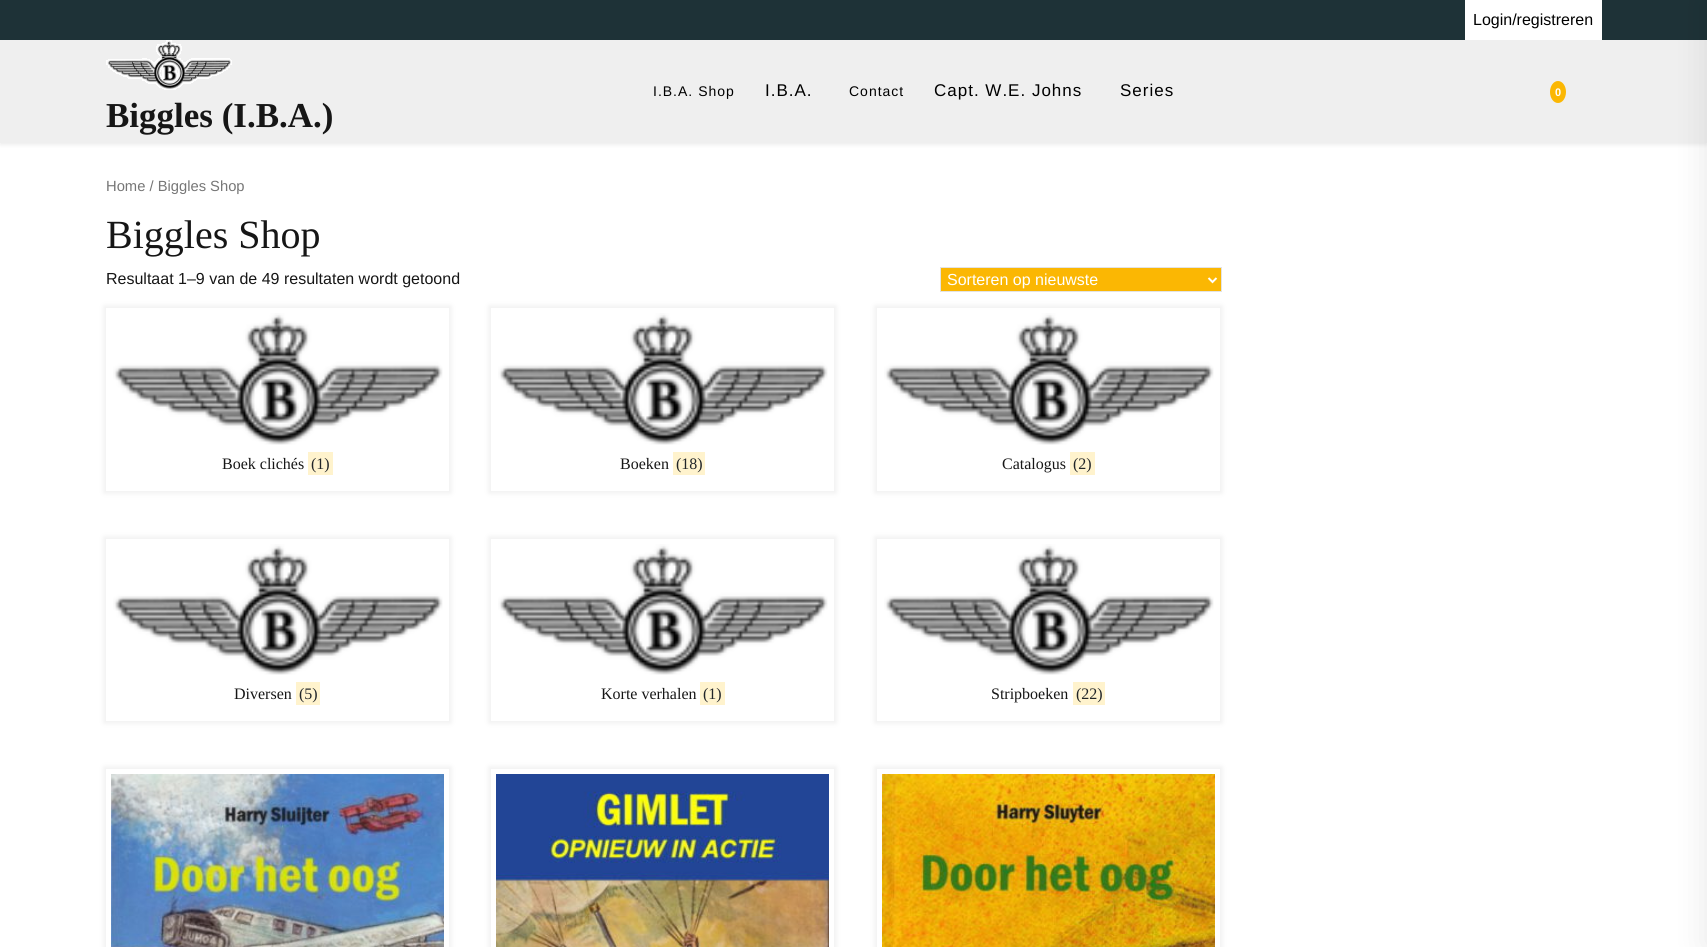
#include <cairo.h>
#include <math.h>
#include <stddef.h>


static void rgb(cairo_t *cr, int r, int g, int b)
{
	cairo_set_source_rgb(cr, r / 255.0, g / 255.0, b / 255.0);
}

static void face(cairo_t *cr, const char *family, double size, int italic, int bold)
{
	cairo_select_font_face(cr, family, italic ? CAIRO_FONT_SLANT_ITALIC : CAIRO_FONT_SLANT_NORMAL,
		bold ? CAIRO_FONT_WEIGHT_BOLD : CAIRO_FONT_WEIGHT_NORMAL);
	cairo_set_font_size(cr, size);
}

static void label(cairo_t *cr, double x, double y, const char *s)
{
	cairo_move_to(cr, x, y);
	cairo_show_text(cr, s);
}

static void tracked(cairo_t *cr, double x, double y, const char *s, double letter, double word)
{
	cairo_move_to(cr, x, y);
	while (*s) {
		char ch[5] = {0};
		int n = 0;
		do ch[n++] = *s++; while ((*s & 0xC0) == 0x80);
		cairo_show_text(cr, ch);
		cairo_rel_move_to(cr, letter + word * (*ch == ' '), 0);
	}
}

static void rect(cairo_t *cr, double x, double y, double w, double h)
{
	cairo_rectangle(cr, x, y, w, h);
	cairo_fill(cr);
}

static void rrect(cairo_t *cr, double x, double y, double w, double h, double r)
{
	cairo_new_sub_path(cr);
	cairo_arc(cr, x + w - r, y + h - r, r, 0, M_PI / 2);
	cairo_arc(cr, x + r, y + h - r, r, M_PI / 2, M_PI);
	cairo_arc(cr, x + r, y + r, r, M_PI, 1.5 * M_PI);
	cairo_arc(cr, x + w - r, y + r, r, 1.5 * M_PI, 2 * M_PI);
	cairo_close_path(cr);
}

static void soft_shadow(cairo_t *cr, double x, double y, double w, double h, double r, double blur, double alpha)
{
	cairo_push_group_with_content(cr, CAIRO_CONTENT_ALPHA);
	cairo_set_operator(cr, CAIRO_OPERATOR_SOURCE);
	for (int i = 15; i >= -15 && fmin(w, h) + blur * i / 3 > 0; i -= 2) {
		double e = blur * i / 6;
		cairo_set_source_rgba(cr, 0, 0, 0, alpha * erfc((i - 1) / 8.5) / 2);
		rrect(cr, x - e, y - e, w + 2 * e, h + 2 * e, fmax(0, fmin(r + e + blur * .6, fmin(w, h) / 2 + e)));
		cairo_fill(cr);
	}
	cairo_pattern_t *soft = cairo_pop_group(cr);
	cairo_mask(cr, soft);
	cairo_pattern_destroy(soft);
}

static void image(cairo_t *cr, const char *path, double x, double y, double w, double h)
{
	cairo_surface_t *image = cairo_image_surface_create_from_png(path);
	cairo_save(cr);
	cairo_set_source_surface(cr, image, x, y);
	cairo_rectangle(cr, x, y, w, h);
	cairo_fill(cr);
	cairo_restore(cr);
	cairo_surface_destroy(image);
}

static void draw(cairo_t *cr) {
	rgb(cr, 255, 255, 255);
	cairo_paint(cr);
	rgb(cr, 0, 0, 0);
	soft_shadow(cr, 0, 2, 1707, 143, 0, 2, 0.07);
	rgb(cr, 30, 50, 55);
	rect(cr, 0, 0, 1707, 40);
	rgb(cr, 255, 255, 255);
	rect(cr, 1465, 0, 137, 40);
	face(cr, "Liberation Sans", 16, 0, 0);
	rgb(cr, 0, 0, 0);
	label(cr, 1473, 25, "Login/registreren");
	rgb(cr, 239, 239, 239);
	rect(cr, 0, 40, 1707, 103);
	face(cr, "Liberation Sans", 14, 0, 0);
	rgb(cr, 0, 0, 0);
	tracked(cr, 653, 96, "I.B.A. Shop", 1, 0);
	face(cr, "Liberation Sans", 17, 0, 0);
	tracked(cr, 765, 96, "I.B.A.", 1, 0);
	face(cr, "Liberation Sans", 14, 0, 0);
	tracked(cr, 849, 96, "Contact", 1, 0);
	face(cr, "Liberation Sans", 17, 0, 0);
	tracked(cr, 934, 96, "Capt. W.E. Johns", 1, 0);
	tracked(cr, 1120, 96, "Series", 1, 0);
	rgb(cr, 251, 183, 3);
	cairo_new_path(cr);
	cairo_move_to(cr, 1558, 81);
	cairo_curve_to(cr, 1562.5, 81, 1566, 86, 1566, 92);
	cairo_curve_to(cr, 1566, 98, 1562.5, 103, 1558, 103);
	cairo_curve_to(cr, 1553.5, 103, 1550, 98, 1550, 92);
	cairo_curve_to(cr, 1550, 86, 1553.5, 81, 1558, 81);
	cairo_close_path(cr);
	cairo_fill(cr);
	face(cr, "Liberation Sans", 11, 0, 1);
	rgb(cr, 255, 255, 255);
	label(cr, 1555, 96, "0");
	image(cr, "image0.png", 106, 40, 126, 50);
	face(cr, "Liberation Serif", 35, 0, 1);
	rgb(cr, 22, 22, 22);
	label(cr, 106, 127, "Biggles (I.B.A.)");
	rgb(cr, 0, 0, 0);
	soft_shadow(cr, 1707, 0, 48, 947, 0, 16, 0.1);
	face(cr, "Liberation Sans", 14.75, 0, 0);
	rgb(cr, 118, 118, 118);
	label(cr, 106, 191, "Home / Biggles Shop");
	face(cr, "Liberation Serif", 40, 0, 0);
	rgb(cr, 22, 22, 22);
	label(cr, 106, 248, "Biggles Shop");
	face(cr, "Liberation Sans", 16, 0, 0);
	label(cr, 106, 284, "Resultaat 1–9 van de 49 resultaten wordt getoond");
	rgb(cr, 251, 183, 3);
	cairo_rectangle(cr, 940.5, 267.5, 281, 24);
	cairo_fill_preserve(cr);
	rgb(cr, 227, 227, 227);
	cairo_set_line_width(cr, 1);
	cairo_stroke(cr);
	cairo_new_path(cr);
	cairo_move_to(cr, 1208.5, 278);
	cairo_line_to(cr, 1212.5, 282);
	cairo_line_to(cr, 1216.5, 278);
	rgb(cr, 255, 255, 255);
	cairo_set_line_width(cr, 2);
	cairo_stroke(cr);
	label(cr, 947, 285, "Sorteren op nieuwste");
	cairo_save(cr);
	cairo_set_fill_rule(cr, CAIRO_FILL_RULE_EVEN_ODD);
	cairo_new_path(cr);
	cairo_move_to(cr, 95, 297);
	cairo_line_to(cr, 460, 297);
	cairo_line_to(cr, 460, 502);
	cairo_line_to(cr, 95, 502);
	cairo_close_path(cr);
	cairo_move_to(cr, 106, 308);
	cairo_line_to(cr, 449, 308);
	cairo_line_to(cr, 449, 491);
	cairo_line_to(cr, 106, 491);
	cairo_close_path(cr);
	cairo_clip(cr);
	rgb(cr, 239, 239, 239);
	soft_shadow(cr, 104, 306, 347, 187, 0, 2.5, 1);
	cairo_restore(cr);
	image(cr, "image1.png", 113, 313, 330, 132);
	face(cr, "Liberation Serif", 16, 0, 0);
	rgb(cr, 22, 22, 22);
	label(cr, 222, 469, "Boek clichés");
	rgb(cr, 255, 243, 205);
	rect(cr, 308, 452, 25, 23);
	rgb(cr, 33, 37, 41);
	label(cr, 311, 469, "(1)");
	cairo_save(cr);
	cairo_set_fill_rule(cr, CAIRO_FILL_RULE_EVEN_ODD);
	cairo_new_path(cr);
	cairo_move_to(cr, 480, 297);
	cairo_line_to(cr, 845, 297);
	cairo_line_to(cr, 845, 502);
	cairo_line_to(cr, 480, 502);
	cairo_close_path(cr);
	cairo_move_to(cr, 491, 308);
	cairo_line_to(cr, 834, 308);
	cairo_line_to(cr, 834, 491);
	cairo_line_to(cr, 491, 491);
	cairo_close_path(cr);
	cairo_clip(cr);
	rgb(cr, 239, 239, 239);
	soft_shadow(cr, 489, 306, 347, 187, 0, 2.5, 1);
	cairo_restore(cr);
	image(cr, "image2.png", 498, 313, 330, 132);
	rgb(cr, 22, 22, 22);
	label(cr, 620, 469, "Boeken");
	rgb(cr, 255, 243, 205);
	rect(cr, 673, 452, 32, 23);
	rgb(cr, 33, 37, 41);
	label(cr, 676, 469, "(18)");
	cairo_save(cr);
	cairo_set_fill_rule(cr, CAIRO_FILL_RULE_EVEN_ODD);
	cairo_new_path(cr);
	cairo_move_to(cr, 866, 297);
	cairo_line_to(cr, 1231, 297);
	cairo_line_to(cr, 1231, 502);
	cairo_line_to(cr, 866, 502);
	cairo_close_path(cr);
	cairo_move_to(cr, 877, 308);
	cairo_line_to(cr, 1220, 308);
	cairo_line_to(cr, 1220, 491);
	cairo_line_to(cr, 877, 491);
	cairo_close_path(cr);
	cairo_clip(cr);
	rgb(cr, 239, 239, 239);
	soft_shadow(cr, 875, 306, 347, 187, 0, 2.5, 1);
	cairo_restore(cr);
	image(cr, "image3.png", 884, 313, 330, 132);
	rgb(cr, 22, 22, 22);
	label(cr, 1002, 469, "Catalogus");
	rgb(cr, 255, 243, 205);
	rect(cr, 1070, 452, 25, 23);
	rgb(cr, 33, 37, 41);
	label(cr, 1073, 469, "(2)");
	cairo_save(cr);
	cairo_set_fill_rule(cr, CAIRO_FILL_RULE_EVEN_ODD);
	cairo_new_path(cr);
	cairo_move_to(cr, 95, 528);
	cairo_line_to(cr, 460, 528);
	cairo_line_to(cr, 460, 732);
	cairo_line_to(cr, 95, 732);
	cairo_close_path(cr);
	cairo_move_to(cr, 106, 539);
	cairo_line_to(cr, 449, 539);
	cairo_line_to(cr, 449, 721);
	cairo_line_to(cr, 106, 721);
	cairo_close_path(cr);
	cairo_clip(cr);
	rgb(cr, 239, 239, 239);
	soft_shadow(cr, 104, 537, 347, 186, 0, 2.5, 1);
	cairo_restore(cr);
	image(cr, "image4.png", 113, 544, 330, 131);
	rgb(cr, 22, 22, 22);
	label(cr, 234, 699, "Diversen");
	rgb(cr, 255, 243, 205);
	rect(cr, 296, 682, 24, 23);
	rgb(cr, 33, 37, 41);
	label(cr, 299, 699, "(5)");
	cairo_save(cr);
	cairo_set_fill_rule(cr, CAIRO_FILL_RULE_EVEN_ODD);
	cairo_new_path(cr);
	cairo_move_to(cr, 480, 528);
	cairo_line_to(cr, 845, 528);
	cairo_line_to(cr, 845, 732);
	cairo_line_to(cr, 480, 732);
	cairo_close_path(cr);
	cairo_move_to(cr, 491, 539);
	cairo_line_to(cr, 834, 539);
	cairo_line_to(cr, 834, 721);
	cairo_line_to(cr, 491, 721);
	cairo_close_path(cr);
	cairo_clip(cr);
	rgb(cr, 239, 239, 239);
	soft_shadow(cr, 489, 537, 347, 186, 0, 2.5, 1);
	cairo_restore(cr);
	image(cr, "image5.png", 498, 544, 330, 131);
	rgb(cr, 22, 22, 22);
	label(cr, 601, 699, "Korte verhalen");
	rgb(cr, 255, 243, 205);
	rect(cr, 700, 682, 25, 23);
	rgb(cr, 33, 37, 41);
	label(cr, 703, 699, "(1)");
	cairo_save(cr);
	cairo_set_fill_rule(cr, CAIRO_FILL_RULE_EVEN_ODD);
	cairo_new_path(cr);
	cairo_move_to(cr, 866, 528);
	cairo_line_to(cr, 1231, 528);
	cairo_line_to(cr, 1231, 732);
	cairo_line_to(cr, 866, 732);
	cairo_close_path(cr);
	cairo_move_to(cr, 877, 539);
	cairo_line_to(cr, 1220, 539);
	cairo_line_to(cr, 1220, 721);
	cairo_line_to(cr, 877, 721);
	cairo_close_path(cr);
	cairo_clip(cr);
	rgb(cr, 239, 239, 239);
	soft_shadow(cr, 875, 537, 347, 186, 0, 2.5, 1);
	cairo_restore(cr);
	image(cr, "image6.png", 884, 544, 330, 131);
	rgb(cr, 22, 22, 22);
	label(cr, 991, 699, "Stripboeken");
	rgb(cr, 255, 243, 205);
	rect(cr, 1073, 682, 32, 23);
	rgb(cr, 33, 37, 41);
	label(cr, 1076, 699, "(22)");
	cairo_save(cr);
	cairo_set_fill_rule(cr, CAIRO_FILL_RULE_EVEN_ODD);
	cairo_new_path(cr);
	cairo_move_to(cr, 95, 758);
	cairo_line_to(cr, 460, 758);
	cairo_line_to(cr, 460, 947);
	cairo_line_to(cr, 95, 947);
	cairo_close_path(cr);
	cairo_move_to(cr, 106, 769);
	cairo_line_to(cr, 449, 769);
	cairo_line_to(cr, 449, 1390);
	cairo_line_to(cr, 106, 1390);
	cairo_close_path(cr);
	cairo_clip(cr);
	rgb(cr, 239, 239, 239);
	soft_shadow(cr, 104, 767, 347, 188, 0, 2.5, 1);
	cairo_restore(cr);
	image(cr, "image7.png", 111, 774, 333, 173);
	cairo_save(cr);
	cairo_set_fill_rule(cr, CAIRO_FILL_RULE_EVEN_ODD);
	cairo_new_path(cr);
	cairo_move_to(cr, 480, 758);
	cairo_line_to(cr, 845, 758);
	cairo_line_to(cr, 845, 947);
	cairo_line_to(cr, 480, 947);
	cairo_close_path(cr);
	cairo_move_to(cr, 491, 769);
	cairo_line_to(cr, 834, 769);
	cairo_line_to(cr, 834, 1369);
	cairo_line_to(cr, 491, 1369);
	cairo_close_path(cr);
	cairo_clip(cr);
	rgb(cr, 239, 239, 239);
	soft_shadow(cr, 489, 767, 347, 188, 0, 2.5, 1);
	cairo_restore(cr);
	image(cr, "image8.png", 496, 774, 333, 173);
	cairo_save(cr);
	cairo_set_fill_rule(cr, CAIRO_FILL_RULE_EVEN_ODD);
	cairo_new_path(cr);
	cairo_move_to(cr, 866, 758);
	cairo_line_to(cr, 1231, 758);
	cairo_line_to(cr, 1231, 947);
	cairo_line_to(cr, 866, 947);
	cairo_close_path(cr);
	cairo_move_to(cr, 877, 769);
	cairo_line_to(cr, 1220, 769);
	cairo_line_to(cr, 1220, 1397);
	cairo_line_to(cr, 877, 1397);
	cairo_close_path(cr);
	cairo_clip(cr);
	rgb(cr, 239, 239, 239);
	soft_shadow(cr, 875, 767, 347, 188, 0, 2.5, 1);
	cairo_restore(cr);
	image(cr, "image9.png", 882, 774, 333, 173);
}

int main(void) {
	cairo_surface_t *surface = cairo_image_surface_create(CAIRO_FORMAT_RGB24, 1707, 947);
	cairo_t *cr = cairo_create(surface);
	cairo_font_options_t *options = cairo_font_options_create();
	cairo_font_options_set_hint_metrics(options, CAIRO_HINT_METRICS_OFF);
	cairo_font_options_set_hint_style(options, CAIRO_HINT_STYLE_NONE);
	cairo_set_font_options(cr, options);
	cairo_set_miter_limit(cr, 4);
	draw(cr);
	cairo_surface_write_to_png(surface, "render.png");
	cairo_font_options_destroy(options);
	cairo_destroy(cr);
	cairo_surface_destroy(surface);
	return 0;
}
